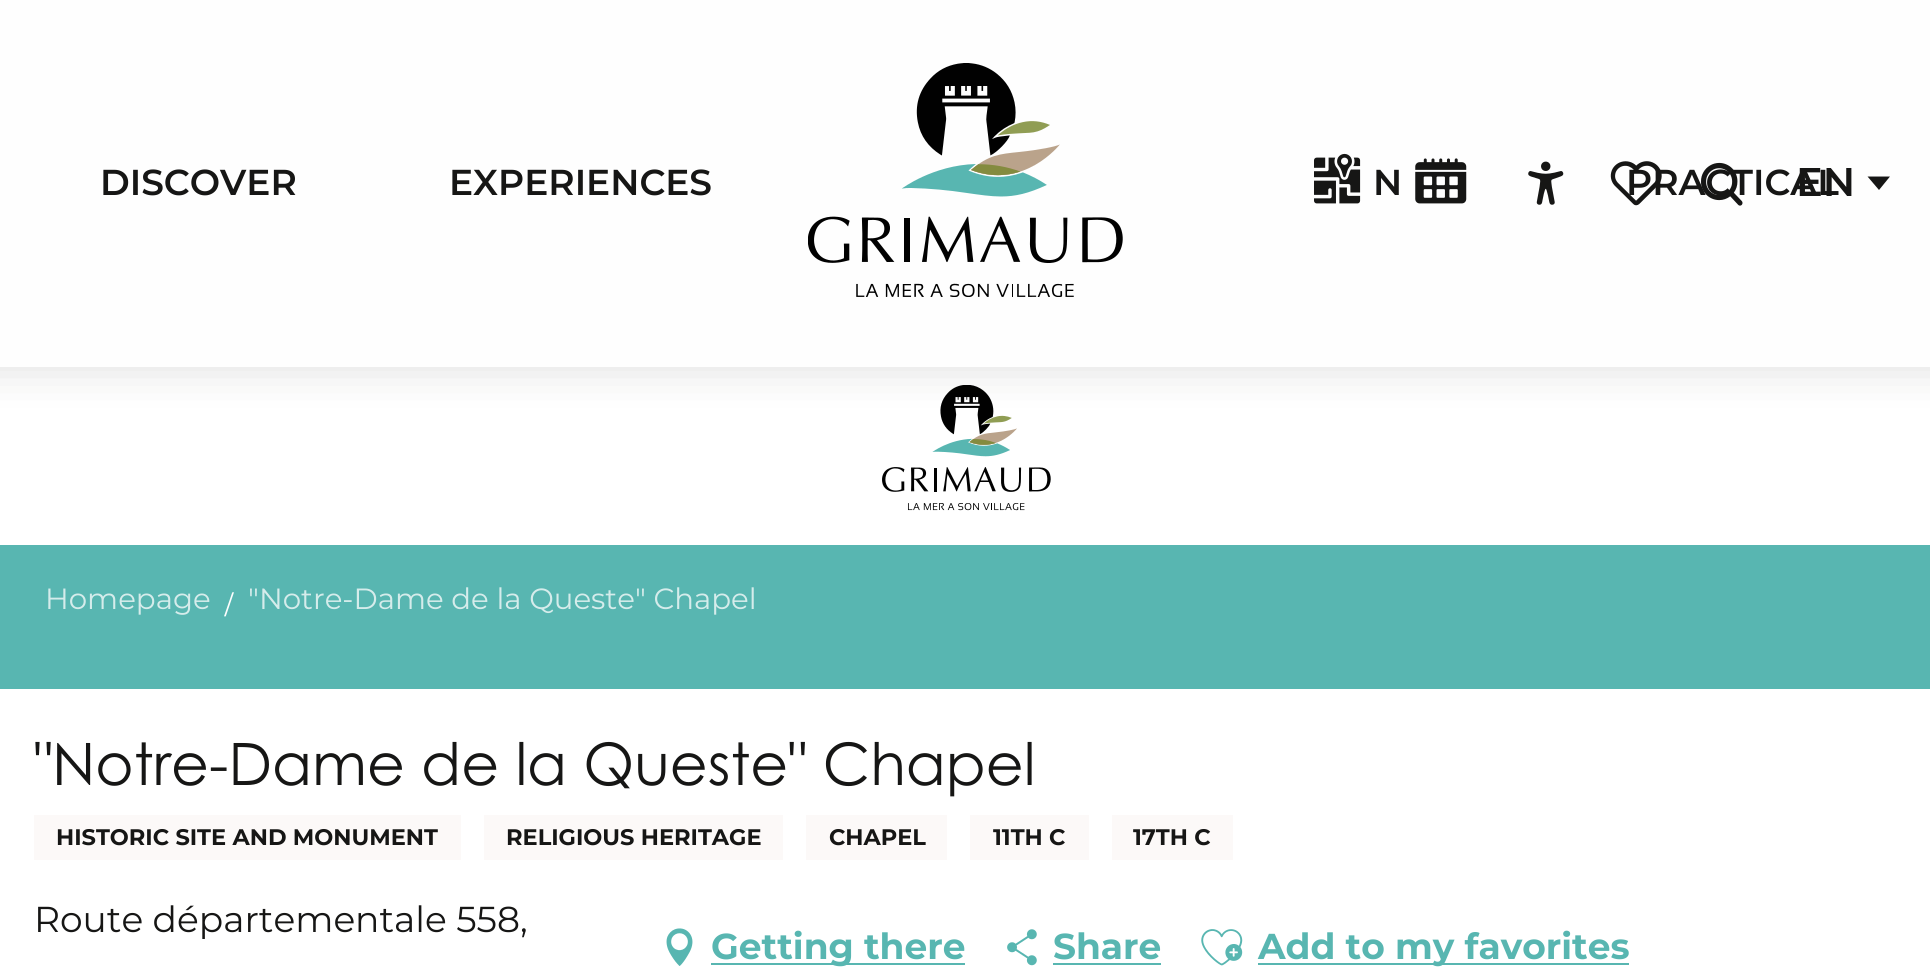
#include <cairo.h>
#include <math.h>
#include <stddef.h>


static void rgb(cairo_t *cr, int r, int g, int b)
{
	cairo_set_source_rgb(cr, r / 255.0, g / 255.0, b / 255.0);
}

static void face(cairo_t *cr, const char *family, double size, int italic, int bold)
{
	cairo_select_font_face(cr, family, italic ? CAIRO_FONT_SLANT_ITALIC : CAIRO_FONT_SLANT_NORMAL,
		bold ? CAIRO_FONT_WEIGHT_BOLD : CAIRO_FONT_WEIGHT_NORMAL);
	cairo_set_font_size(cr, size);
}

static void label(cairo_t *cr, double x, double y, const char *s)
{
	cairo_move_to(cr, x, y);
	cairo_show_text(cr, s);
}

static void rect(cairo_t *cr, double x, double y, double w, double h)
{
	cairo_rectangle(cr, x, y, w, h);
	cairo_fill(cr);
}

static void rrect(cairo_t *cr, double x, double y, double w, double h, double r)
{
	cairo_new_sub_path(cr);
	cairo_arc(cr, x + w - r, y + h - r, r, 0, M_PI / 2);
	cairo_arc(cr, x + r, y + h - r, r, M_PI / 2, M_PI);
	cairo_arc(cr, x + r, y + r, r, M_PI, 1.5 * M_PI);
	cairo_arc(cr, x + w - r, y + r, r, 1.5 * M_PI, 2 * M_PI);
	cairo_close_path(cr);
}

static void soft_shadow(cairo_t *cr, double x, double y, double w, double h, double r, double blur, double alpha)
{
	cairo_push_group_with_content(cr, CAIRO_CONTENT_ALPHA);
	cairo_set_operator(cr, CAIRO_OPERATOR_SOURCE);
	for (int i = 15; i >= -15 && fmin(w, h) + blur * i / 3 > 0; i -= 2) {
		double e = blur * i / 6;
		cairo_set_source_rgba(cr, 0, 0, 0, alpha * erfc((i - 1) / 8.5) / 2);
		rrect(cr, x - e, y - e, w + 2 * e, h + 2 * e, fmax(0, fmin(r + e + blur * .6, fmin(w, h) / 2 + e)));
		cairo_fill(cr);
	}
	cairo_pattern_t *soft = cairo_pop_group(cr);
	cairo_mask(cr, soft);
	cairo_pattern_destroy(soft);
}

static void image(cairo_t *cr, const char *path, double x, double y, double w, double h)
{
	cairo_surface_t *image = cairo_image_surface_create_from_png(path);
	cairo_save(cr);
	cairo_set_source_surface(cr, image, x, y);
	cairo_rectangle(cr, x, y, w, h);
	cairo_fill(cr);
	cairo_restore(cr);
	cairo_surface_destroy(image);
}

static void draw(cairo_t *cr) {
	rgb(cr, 255, 255, 255);
	cairo_paint(cr);
	image(cr, "image6.png", 882, 385, 169, 126);
	rgb(cr, 22, 22, 21);
	soft_shadow(cr, -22, -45, 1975, 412, 0, 22.5, 0.15);
	rgb(cr, 254, 254, 254);
	rect(cr, 0, 0, 1930, 367);
	image(cr, "image0.png", 1314, 153, 47, 51);
	image(cr, "image1.png", 1415, 158, 52, 46);
	image(cr, "image2.png", 1528, 161, 36, 44);
	face(cr, "Montserrat SemiBold", 36, 0, 0);
	rgb(cr, 22, 22, 21);
	label(cr, 1626, 195, "PRACTICAL");
	image(cr, "image3.png", 1610, 161, 52, 45);
	image(cr, "image4.png", 1701, 162, 42, 44);
	face(cr, "Montserrat SemiBold", 40, 0, 0);
	label(cr, 1796, 196, "EN");
	cairo_new_path(cr);
	cairo_move_to(cr, 1867.5, 176.5);
	cairo_line_to(cr, 1890, 176.5);
	cairo_line_to(cr, 1879, 190);
	cairo_close_path(cr);
	cairo_fill(cr);
	face(cr, "Montserrat SemiBold", 36, 0, 0);
	label(cr, 100, 195, "DISCOVER");
	label(cr, 449, 195, "EXPERIENCES");
	image(cr, "image5.png", 808, 63, 315, 234);
	label(cr, 1373, 195, "N");
	rgb(cr, 88, 182, 177);
	rect(cr, 0, 545, 1930, 144);
	face(cr, "Montserrat", 29.25, 0, 0);
	rgb(cr, 213, 236, 235);
	label(cr, 45, 609, "Homepage");
	face(cr, "Liberation Serif", 36, 0, 0);
	rgb(cr, 254, 254, 254);
	label(cr, 224, 616, "/");
	face(cr, "Montserrat", 29.25, 0, 0);
	rgb(cr, 213, 236, 235);
	label(cr, 248, 609, "\"Notre-Dame de la Queste\" Chapel");
	face(cr, "Century Gothic", 58.5, 0, 0);
	rgb(cr, 22, 22, 21);
	label(cr, 34, 785, "\"Notre-Dame de la Queste\" Chapel");
	rgb(cr, 252, 249, 248);
	rect(cr, 34, 815, 427, 45);
	face(cr, "Montserrat", 22.5, 0, 1);
	rgb(cr, 22, 22, 21);
	label(cr, 56, 845, "HISTORIC SITE AND MONUMENT");
	rgb(cr, 252, 249, 248);
	rect(cr, 484, 815, 299, 45);
	rgb(cr, 22, 22, 21);
	label(cr, 506, 845, "RELIGIOUS HERITAGE");
	rgb(cr, 252, 249, 248);
	rect(cr, 806, 815, 141, 45);
	rgb(cr, 22, 22, 21);
	label(cr, 829, 845, "CHAPEL");
	rgb(cr, 252, 249, 248);
	rect(cr, 970, 815, 119, 45);
	rgb(cr, 22, 22, 21);
	label(cr, 993, 845, "11TH C");
	rgb(cr, 252, 249, 248);
	rect(cr, 1112, 815, 121, 45);
	rgb(cr, 22, 22, 21);
	label(cr, 1133, 845, "17TH C");
	face(cr, "Montserrat", 36, 0, 0);
	label(cr, 34, 932, "Route départementale 558,");
	image(cr, "image7.png", 666, 928, 27, 38);
	rgb(cr, 88, 182, 177);
	rect(cr, 711, 963, 254, 2);
	face(cr, "Montserrat", 36, 0, 1);
	label(cr, 711, 959, "Getting there");
	image(cr, "image8.png", 1007, 929, 30, 37);
	label(cr, 1053, 959, "Share");
	rect(cr, 1053, 963, 108, 2);
	image(cr, "image9.png", 1201, 929, 42, 37);
	rect(cr, 1258, 963, 371, 2);
	label(cr, 1258, 959, "Add to my favorites");
}

int main(void) {
	cairo_surface_t *surface = cairo_image_surface_create(CAIRO_FORMAT_RGB24, 1930, 974);
	cairo_t *cr = cairo_create(surface);
	cairo_font_options_t *options = cairo_font_options_create();
	cairo_font_options_set_hint_metrics(options, CAIRO_HINT_METRICS_OFF);
	cairo_font_options_set_hint_style(options, CAIRO_HINT_STYLE_NONE);
	cairo_set_font_options(cr, options);
	cairo_set_miter_limit(cr, 4);
	draw(cr);
	cairo_surface_write_to_png(surface, "render.png");
	cairo_font_options_destroy(options);
	cairo_destroy(cr);
	cairo_surface_destroy(surface);
	return 0;
}
